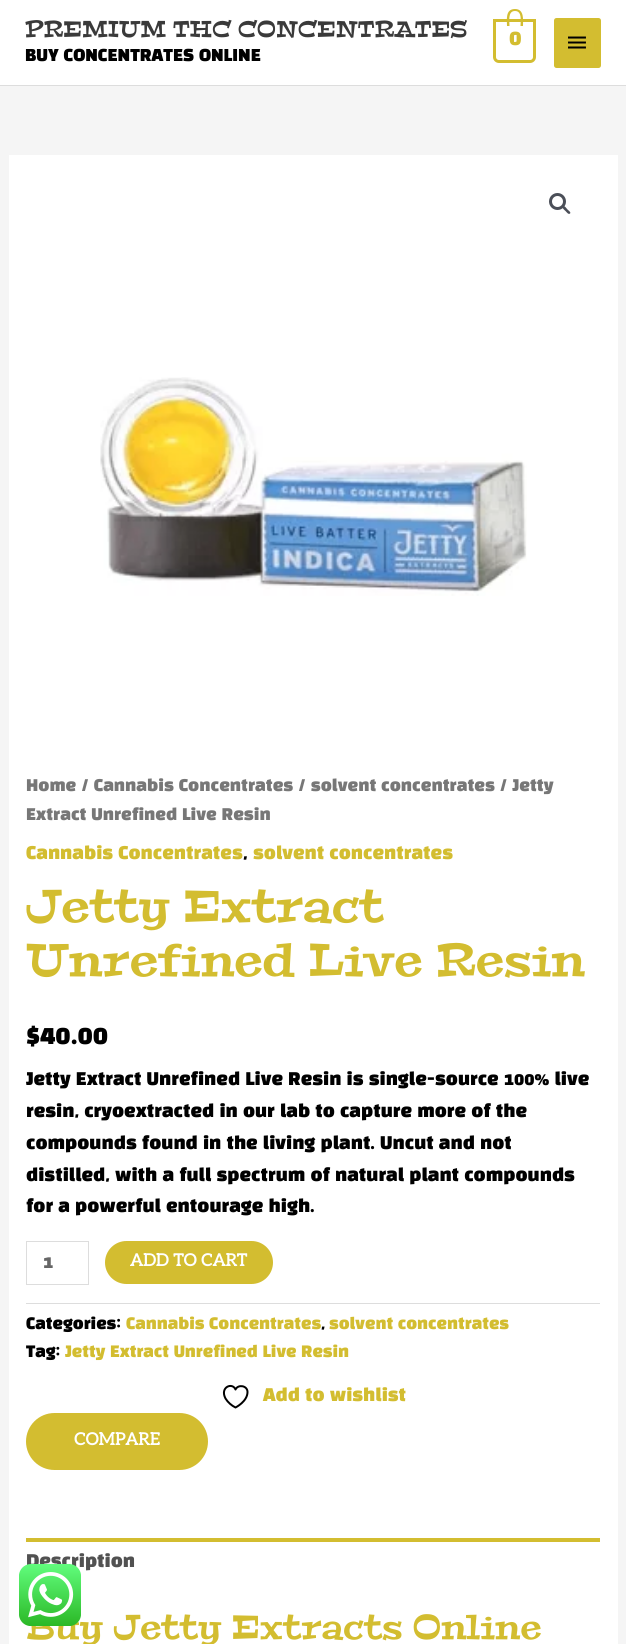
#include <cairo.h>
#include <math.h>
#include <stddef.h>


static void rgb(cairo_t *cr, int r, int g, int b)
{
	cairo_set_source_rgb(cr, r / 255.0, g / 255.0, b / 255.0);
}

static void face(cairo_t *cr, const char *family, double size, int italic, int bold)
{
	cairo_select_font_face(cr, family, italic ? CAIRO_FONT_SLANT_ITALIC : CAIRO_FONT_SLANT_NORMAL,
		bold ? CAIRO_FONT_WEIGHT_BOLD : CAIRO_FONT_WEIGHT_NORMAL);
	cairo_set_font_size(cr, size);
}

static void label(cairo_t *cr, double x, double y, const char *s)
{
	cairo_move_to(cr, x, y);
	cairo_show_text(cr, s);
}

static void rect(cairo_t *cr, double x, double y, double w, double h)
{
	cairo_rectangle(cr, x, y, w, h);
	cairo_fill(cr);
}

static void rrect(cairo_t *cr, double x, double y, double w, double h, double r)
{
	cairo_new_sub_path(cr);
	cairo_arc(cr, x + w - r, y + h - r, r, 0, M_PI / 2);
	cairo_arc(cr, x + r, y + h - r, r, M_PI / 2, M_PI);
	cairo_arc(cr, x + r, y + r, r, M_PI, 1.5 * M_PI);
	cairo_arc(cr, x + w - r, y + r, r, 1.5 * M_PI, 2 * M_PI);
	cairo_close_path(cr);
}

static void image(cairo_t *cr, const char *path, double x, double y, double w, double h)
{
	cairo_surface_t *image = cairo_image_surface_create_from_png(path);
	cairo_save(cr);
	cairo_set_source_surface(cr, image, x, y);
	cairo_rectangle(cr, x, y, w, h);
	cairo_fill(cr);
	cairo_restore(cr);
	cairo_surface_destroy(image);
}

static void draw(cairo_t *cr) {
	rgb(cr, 245, 245, 245);
	cairo_paint(cr);
	rgb(cr, 255, 255, 255);
	rect(cr, 0, 0, 626, 85);
	rgb(cr, 221, 221, 221);
	rect(cr, 0, 85, 626, 1);
	face(cr, "Peralta", 22.75, 0, 0);
	rgb(cr, 58, 58, 58);
	label(cr, 25, 37, "PREMIUM THC CONCENTRATES");
	face(cr, "Black Han Sans Black", 16, 0, 0);
	rgb(cr, 0, 0, 0);
	label(cr, 25, 61, "BUY CONCENTRATES ONLINE");
	cairo_new_path(cr);
	cairo_move_to(cr, 494.5, 20.5);
	cairo_line_to(cr, 534.5, 20.5);
	cairo_line_to(cr, 534.5, 57);
	cairo_curve_to(cr, 534.5, 59.5, 532.5, 61.5, 530, 61.5);
	cairo_line_to(cr, 499, 61.5);
	cairo_curve_to(cr, 496.5, 61.5, 494.5, 59.5, 494.5, 57);
	cairo_close_path(cr);
	rgb(cr, 211, 189, 48);
	cairo_set_line_width(cr, 3);
	cairo_stroke(cr);
	cairo_set_fill_rule(cr, CAIRO_FILL_RULE_EVEN_ODD);
	cairo_new_path(cr);
	cairo_move_to(cr, 515, 9);
	cairo_curve_to(cr, 524.5, 9, 523, 20, 523, 26);
	cairo_line_to(cr, 507, 26);
	cairo_curve_to(cr, 507, 20, 505, 9, 515, 9);
	cairo_close_path(cr);
	cairo_move_to(cr, 515, 11);
	cairo_curve_to(cr, 522.5, 11, 520.5, 21.5, 520.5, 26);
	cairo_line_to(cr, 509.5, 26);
	cairo_curve_to(cr, 509.5, 21.5, 507.5, 11, 515, 11);
	cairo_close_path(cr);
	cairo_fill(cr);
	face(cr, "Black Han Sans Black", 21, 0, 0);
	label(cr, 509, 45, "0");
	rrect(cr, 554, 18, 47, 50, 2.5);
	cairo_fill(cr);
	image(cr, "image0.png", 568, 36, 18, 13);
	rgb(cr, 255, 255, 255);
	rect(cr, 9, 155, 609, 1489);
	cairo_arc(cr, 557.5, 201.5, 7, 0, 2 * M_PI);
	rgb(cr, 75, 79, 88);
	cairo_stroke(cr);
	cairo_set_fill_rule(cr, CAIRO_FILL_RULE_WINDING);
	cairo_new_path(cr);
	cairo_move_to(cr, 563, 206.5);
	cairo_curve_to(cr, 564.5, 205, 566.5, 208.5, 567.5, 209.5);
	cairo_curve_to(cr, 568, 210, 571.5, 212.5, 570, 213.5);
	cairo_curve_to(cr, 568.5, 215, 566.5, 212, 565.5, 211);
	cairo_curve_to(cr, 565, 210.5, 561.5, 208, 563, 206.5);
	cairo_close_path(cr);
	cairo_fill(cr);
	image(cr, "image1.png", 100, 377, 427, 219);
	face(cr, "Black Han Sans Black", 15.75, 0, 0);
	rgb(cr, 119, 119, 119);
	label(cr, 26, 791, "Home / Cannabis Concentrates / solvent concentrates / Jetty");
	label(cr, 26, 820, "Extract Unrefined Live Resin");
	face(cr, "Black Han Sans Black", 17.1, 0, 0);
	rgb(cr, 211, 189, 48);
	label(cr, 26, 859, "Cannabis Concentrates");
	rgb(cr, 0, 0, 0);
	label(cr, 243, 859, ",");
	rgb(cr, 211, 189, 48);
	label(cr, 253, 859, "solvent concentrates");
	face(cr, "Peralta", 45.6, 0, 0);
	label(cr, 26, 922, "Jetty Extract");
	label(cr, 26, 976, "Unrefined Live Resin");
	face(cr, "Black Han Sans Black", 25.5, 0, 0);
	rgb(cr, 0, 0, 0);
	label(cr, 26, 1044, "$40.00");
	face(cr, "Black Han Sans Black", 17.1, 0, 0);
	label(cr, 26, 1085, "Jetty Extract Unrefined Live Resin is single-source 100% live");
	label(cr, 26, 1117, "resin, cryoextracted in our lab to capture more of the");
	label(cr, 26, 1149, "compounds found in the living plant. Uncut and not");
	label(cr, 26, 1181, "distilled, with a full spectrum of natural plant compounds");
	label(cr, 26, 1212, "for a powerful entourage high.");
	cairo_rectangle(cr, 26.5, 1241.5, 62, 43);
	rgb(cr, 221, 221, 221);
	cairo_set_line_width(cr, 1);
	cairo_stroke(cr);
	rgb(cr, 102, 102, 102);
	label(cr, 43, 1268, "1");
	rgb(cr, 211, 189, 48);
	rrect(cr, 105, 1241, 168, 43, 21.5);
	cairo_fill(cr);
	face(cr, "Aleo", 17.1, 0, 1);
	rgb(cr, 255, 255, 255);
	label(cr, 130, 1266, "ADD TO CART");
	rgb(cr, 221, 221, 221);
	rect(cr, 26, 1303, 574, 1);
	face(cr, "Black Han Sans Black", 15.4, 0, 0);
	rgb(cr, 0, 0, 0);
	label(cr, 26, 1329, "Categories:");
	rgb(cr, 211, 189, 48);
	label(cr, 126, 1329, "Cannabis Concentrates");
	rgb(cr, 0, 0, 0);
	label(cr, 321, 1329, ",");
	rgb(cr, 211, 189, 48);
	label(cr, 329, 1329, "solvent concentrates");
	rgb(cr, 0, 0, 0);
	label(cr, 26, 1357, "Tag:");
	rgb(cr, 211, 189, 48);
	label(cr, 65, 1357, "Jetty Extract Unrefined Live Resin");
	cairo_new_path(cr);
	cairo_move_to(cr, 247.5, 1392);
	cairo_curve_to(cr, 247.5, 1385.5, 238, 1384, 235.5, 1389.5);
	cairo_curve_to(cr, 232.5, 1382, 219.5, 1387, 225.5, 1398.5);
	cairo_curve_to(cr, 228, 1402.5, 231.5, 1405.5, 235.5, 1407.5);
	cairo_curve_to(cr, 235.5, 1407.5, 247.5, 1401.5, 247.5, 1392);
	cairo_close_path(cr);
	rgb(cr, 0, 0, 0);
	cairo_set_line_width(cr, 2);
	cairo_set_line_cap(cr, CAIRO_LINE_CAP_ROUND);
	cairo_set_line_join(cr, CAIRO_LINE_JOIN_ROUND);
	cairo_stroke(cr);
	face(cr, "Black Han Sans Black", 17.1, 0, 0);
	rgb(cr, 211, 189, 48);
	label(cr, 263, 1401, "Add to wishlist");
	rrect(cr, 26, 1413, 182, 57, 28.5);
	cairo_fill(cr);
	face(cr, "Aleo", 17.1, 0, 1);
	rgb(cr, 255, 255, 255);
	label(cr, 74, 1445, "COMPARE");
	rgb(cr, 211, 189, 48);
	rect(cr, 26, 1538, 574, 4);
	face(cr, "Black Han Sans Black", 17.1, 0, 0);
	rgb(cr, 81, 81, 81);
	label(cr, 26, 1567, "Description");
	face(cr, "Peralta", 34.25, 0, 0);
	rgb(cr, 211, 189, 48);
	label(cr, 26, 1639, "Buy Jetty Extracts Online");
	image(cr, "image2.png", 19, 1564, 62, 62);
}

int main(void) {
	cairo_surface_t *surface = cairo_image_surface_create(CAIRO_FORMAT_RGB24, 626, 1644);
	cairo_t *cr = cairo_create(surface);
	cairo_font_options_t *options = cairo_font_options_create();
	cairo_font_options_set_hint_metrics(options, CAIRO_HINT_METRICS_OFF);
	cairo_font_options_set_hint_style(options, CAIRO_HINT_STYLE_NONE);
	cairo_set_font_options(cr, options);
	cairo_set_miter_limit(cr, 4);
	draw(cr);
	cairo_surface_write_to_png(surface, "render.png");
	cairo_font_options_destroy(options);
	cairo_destroy(cr);
	cairo_surface_destroy(surface);
	return 0;
}
